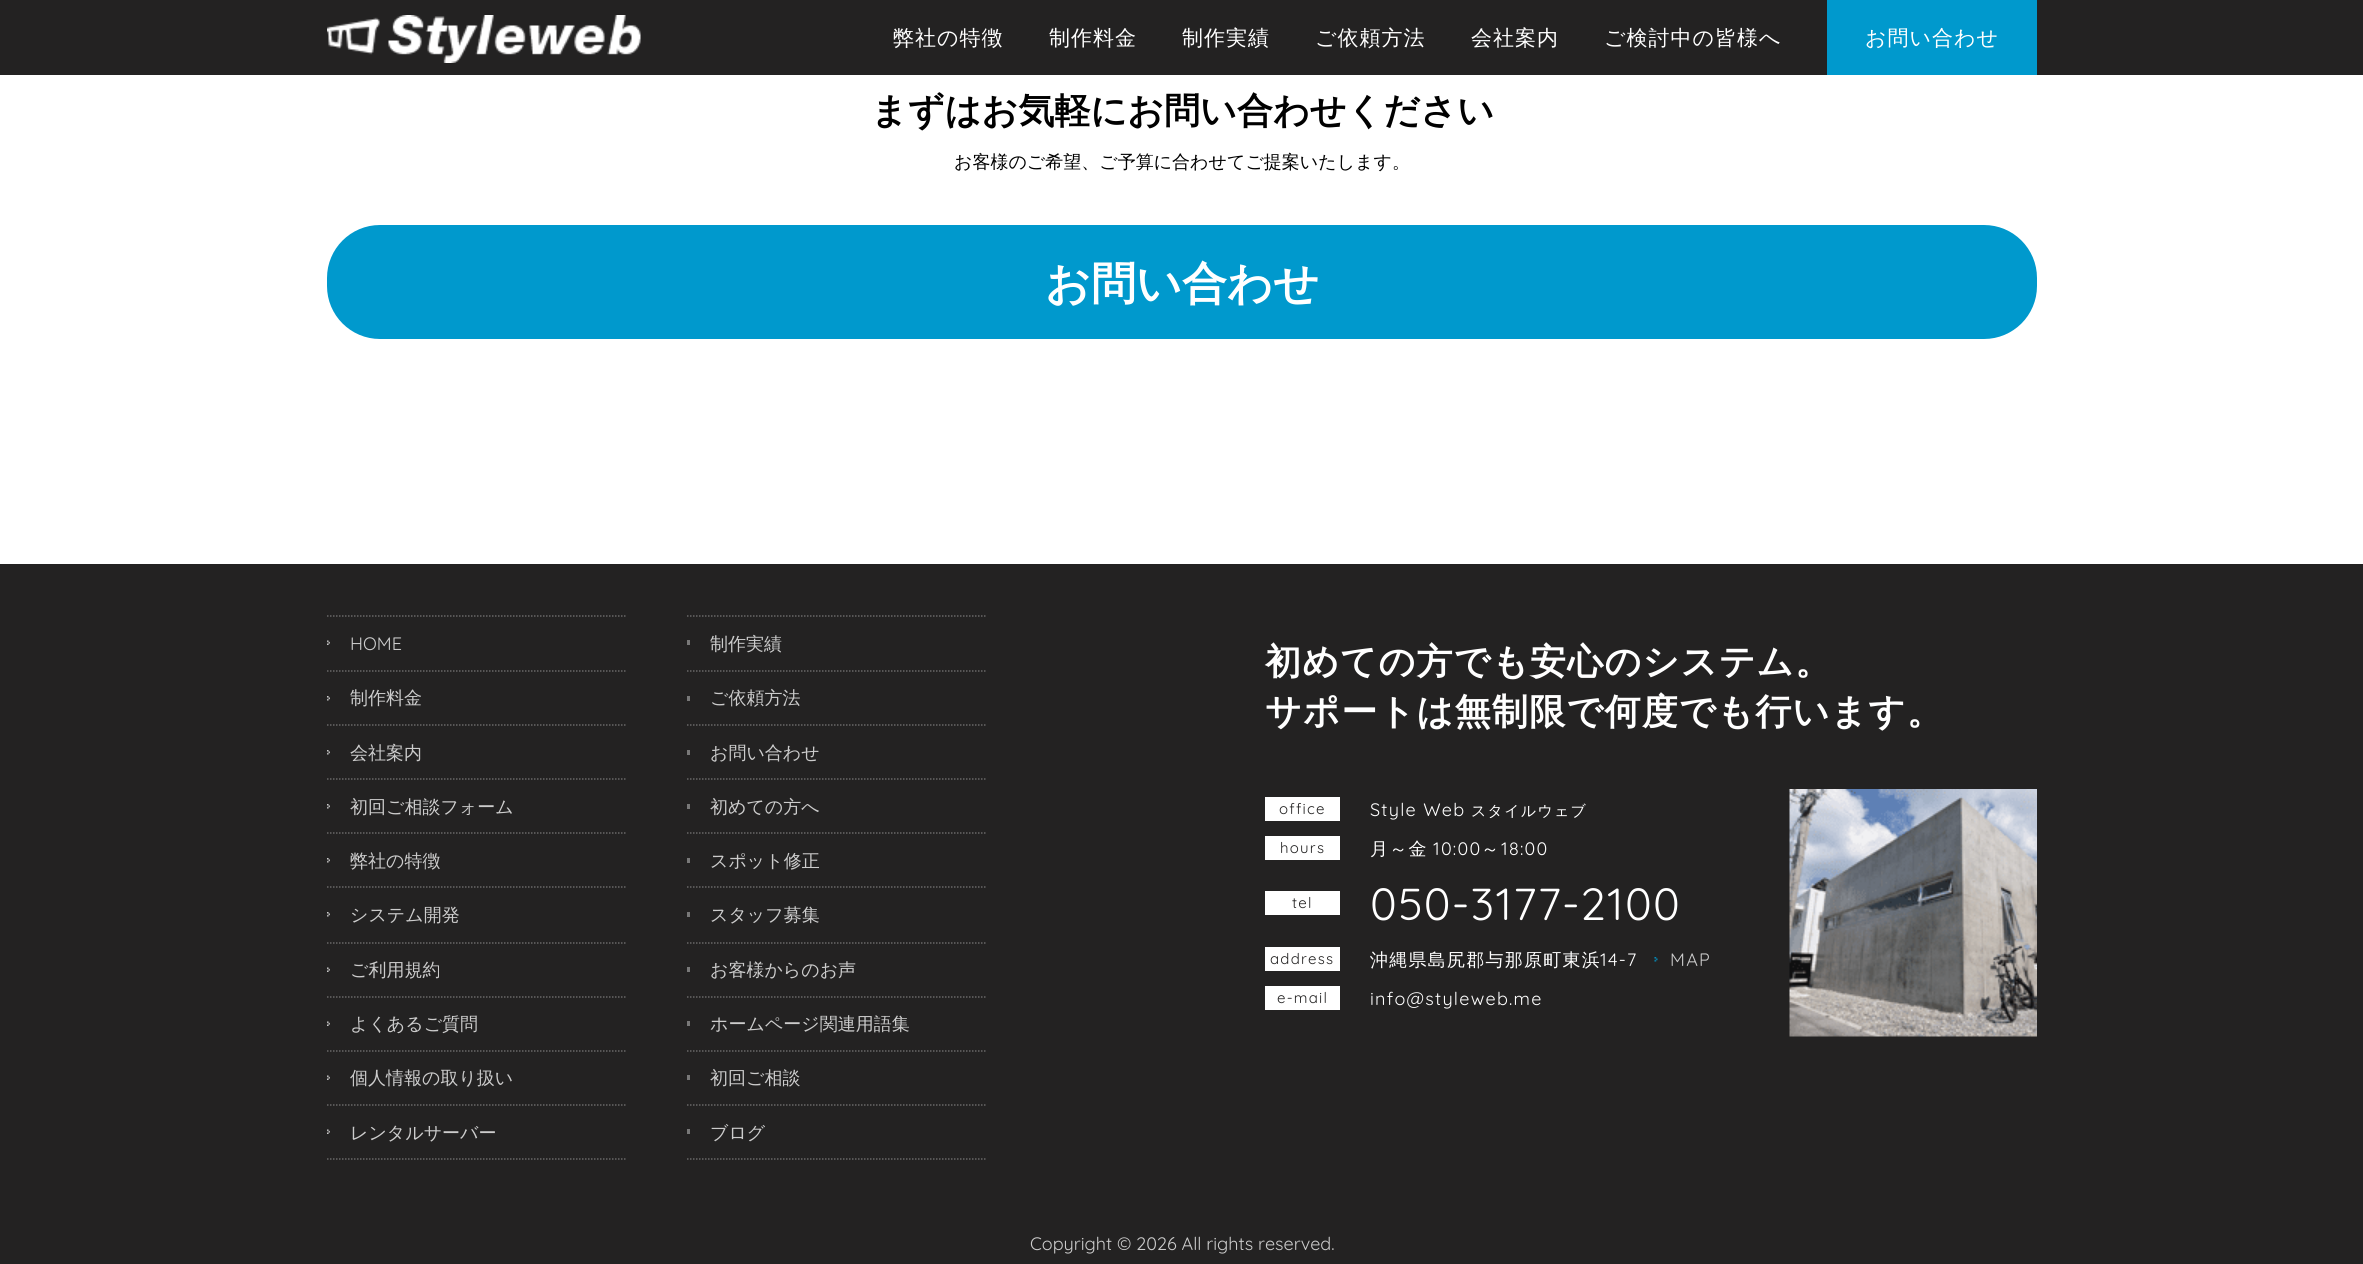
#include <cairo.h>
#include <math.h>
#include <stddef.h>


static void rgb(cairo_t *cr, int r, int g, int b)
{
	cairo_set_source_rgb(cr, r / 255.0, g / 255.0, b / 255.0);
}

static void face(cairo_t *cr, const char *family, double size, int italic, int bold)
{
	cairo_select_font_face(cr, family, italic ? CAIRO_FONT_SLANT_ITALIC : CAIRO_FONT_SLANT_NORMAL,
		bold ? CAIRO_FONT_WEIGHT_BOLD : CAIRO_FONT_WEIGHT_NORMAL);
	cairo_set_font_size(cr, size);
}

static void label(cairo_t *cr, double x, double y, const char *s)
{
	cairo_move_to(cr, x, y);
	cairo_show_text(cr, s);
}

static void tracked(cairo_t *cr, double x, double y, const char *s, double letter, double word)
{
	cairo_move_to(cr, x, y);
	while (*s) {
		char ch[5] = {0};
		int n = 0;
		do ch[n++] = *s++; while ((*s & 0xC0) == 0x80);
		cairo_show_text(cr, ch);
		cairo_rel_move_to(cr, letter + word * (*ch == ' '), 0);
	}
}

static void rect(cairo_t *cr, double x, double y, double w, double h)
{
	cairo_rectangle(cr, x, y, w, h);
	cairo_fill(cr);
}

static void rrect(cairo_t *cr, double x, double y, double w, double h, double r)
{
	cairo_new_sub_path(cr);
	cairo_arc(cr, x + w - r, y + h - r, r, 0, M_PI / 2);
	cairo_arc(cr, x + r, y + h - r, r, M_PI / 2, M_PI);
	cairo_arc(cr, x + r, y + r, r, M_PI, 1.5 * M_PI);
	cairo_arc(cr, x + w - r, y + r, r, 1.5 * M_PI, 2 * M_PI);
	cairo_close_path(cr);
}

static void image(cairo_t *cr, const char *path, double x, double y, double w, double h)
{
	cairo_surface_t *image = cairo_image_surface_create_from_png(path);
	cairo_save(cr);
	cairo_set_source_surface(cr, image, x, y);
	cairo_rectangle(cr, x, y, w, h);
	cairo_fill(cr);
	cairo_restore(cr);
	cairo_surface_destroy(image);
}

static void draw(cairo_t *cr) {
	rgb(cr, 255, 255, 255);
	cairo_paint(cr);
	rgb(cr, 35, 34, 34);
	rect(cr, 0, 564, 2363, 700);
	cairo_new_path(cr);
	cairo_move_to(cr, 327, 616);
	cairo_line_to(cr, 627, 616);
	rgb(cr, 103, 103, 103);
	cairo_set_line_width(cr, 1.5);
	cairo_set_dash(cr, (double[]){1.5, 1.5}, 2, 0);
	cairo_stroke(cr);
	image(cr, "image0.png", 327, 640, 3, 5);
	face(cr, "Quicksand", 18, 0, 0);
	rgb(cr, 204, 204, 204);
	label(cr, 350, 650, "HOME");
	cairo_new_path(cr);
	cairo_move_to(cr, 687, 616);
	cairo_line_to(cr, 987, 616);
	rgb(cr, 103, 103, 103);
	cairo_stroke(cr);
	rgb(cr, 120, 120, 120);
	rect(cr, 687, 640, 3, 5);
	face(cr, "WenQuanYi Zen Hei Medium", 18, 0, 0);
	rgb(cr, 204, 204, 204);
	label(cr, 710, 650, "制作実績");
	cairo_new_path(cr);
	cairo_move_to(cr, 327, 671);
	cairo_line_to(cr, 627, 671);
	rgb(cr, 103, 103, 103);
	cairo_stroke(cr);
	image(cr, "image1.png", 327, 696, 3, 5);
	rgb(cr, 204, 204, 204);
	label(cr, 350, 704, "制作料金");
	cairo_new_path(cr);
	cairo_move_to(cr, 687, 671);
	cairo_line_to(cr, 987, 671);
	rgb(cr, 103, 103, 103);
	cairo_stroke(cr);
	rgb(cr, 120, 120, 120);
	rect(cr, 687, 696, 3, 5);
	rgb(cr, 204, 204, 204);
	label(cr, 710, 704, "ご依頼方法");
	cairo_new_path(cr);
	cairo_move_to(cr, 327, 725);
	cairo_line_to(cr, 627, 725);
	rgb(cr, 103, 103, 103);
	cairo_stroke(cr);
	image(cr, "image1.png", 327, 750, 3, 5);
	rgb(cr, 204, 204, 204);
	label(cr, 350, 759, "会社案内");
	cairo_new_path(cr);
	cairo_move_to(cr, 687, 725);
	cairo_line_to(cr, 987, 725);
	rgb(cr, 103, 103, 103);
	cairo_stroke(cr);
	rgb(cr, 120, 120, 120);
	rect(cr, 687, 750, 3, 5);
	rgb(cr, 204, 204, 204);
	label(cr, 710, 759, "お問い合わせ");
	cairo_new_path(cr);
	cairo_move_to(cr, 327, 779);
	cairo_line_to(cr, 627, 779);
	rgb(cr, 103, 103, 103);
	cairo_stroke(cr);
	image(cr, "image1.png", 327, 804, 3, 5);
	rgb(cr, 204, 204, 204);
	label(cr, 350, 813, "初回ご相談フォーム");
	cairo_new_path(cr);
	cairo_move_to(cr, 687, 779);
	cairo_line_to(cr, 987, 779);
	rgb(cr, 103, 103, 103);
	cairo_stroke(cr);
	rgb(cr, 120, 120, 120);
	rect(cr, 687, 804, 3, 5);
	rgb(cr, 204, 204, 204);
	label(cr, 710, 813, "初めての方へ");
	cairo_new_path(cr);
	cairo_move_to(cr, 327, 833);
	cairo_line_to(cr, 627, 833);
	rgb(cr, 103, 103, 103);
	cairo_stroke(cr);
	image(cr, "image1.png", 327, 858, 3, 5);
	rgb(cr, 204, 204, 204);
	label(cr, 350, 867, "弊社の特徴");
	cairo_new_path(cr);
	cairo_move_to(cr, 687, 833);
	cairo_line_to(cr, 987, 833);
	rgb(cr, 103, 103, 103);
	cairo_stroke(cr);
	rgb(cr, 120, 120, 120);
	rect(cr, 687, 858, 3, 5);
	rgb(cr, 204, 204, 204);
	label(cr, 710, 867, "スポット修正");
	cairo_new_path(cr);
	cairo_move_to(cr, 327, 887);
	cairo_line_to(cr, 627, 887);
	rgb(cr, 103, 103, 103);
	cairo_stroke(cr);
	image(cr, "image1.png", 327, 912, 3, 5);
	rgb(cr, 204, 204, 204);
	label(cr, 350, 921, "システム開発");
	cairo_new_path(cr);
	cairo_move_to(cr, 687, 887);
	cairo_line_to(cr, 987, 887);
	rgb(cr, 103, 103, 103);
	cairo_stroke(cr);
	rgb(cr, 120, 120, 120);
	rect(cr, 687, 912, 3, 5);
	rgb(cr, 204, 204, 204);
	label(cr, 710, 921, "スタッフ募集");
	cairo_new_path(cr);
	cairo_move_to(cr, 327, 943);
	cairo_line_to(cr, 627, 943);
	rgb(cr, 103, 103, 103);
	cairo_stroke(cr);
	image(cr, "image0.png", 327, 967, 3, 5);
	rgb(cr, 204, 204, 204);
	label(cr, 350, 976, "ご利用規約");
	cairo_new_path(cr);
	cairo_move_to(cr, 687, 943);
	cairo_line_to(cr, 987, 943);
	rgb(cr, 103, 103, 103);
	cairo_stroke(cr);
	rgb(cr, 120, 120, 120);
	rect(cr, 687, 967, 3, 5);
	rgb(cr, 204, 204, 204);
	label(cr, 710, 976, "お客様からのお声");
	cairo_new_path(cr);
	cairo_move_to(cr, 327, 997);
	cairo_line_to(cr, 627, 997);
	rgb(cr, 103, 103, 103);
	cairo_stroke(cr);
	image(cr, "image0.png", 327, 1021, 3, 5);
	rgb(cr, 204, 204, 204);
	label(cr, 350, 1030, "よくあるご質問");
	cairo_new_path(cr);
	cairo_move_to(cr, 687, 997);
	cairo_line_to(cr, 987, 997);
	rgb(cr, 103, 103, 103);
	cairo_stroke(cr);
	rgb(cr, 120, 120, 120);
	rect(cr, 687, 1021, 3, 5);
	rgb(cr, 204, 204, 204);
	label(cr, 710, 1030, "ホームページ関連用語集");
	cairo_new_path(cr);
	cairo_move_to(cr, 327, 1051);
	cairo_line_to(cr, 627, 1051);
	rgb(cr, 103, 103, 103);
	cairo_stroke(cr);
	image(cr, "image0.png", 327, 1075, 3, 5);
	rgb(cr, 204, 204, 204);
	label(cr, 350, 1084, "個人情報の取り扱い");
	cairo_new_path(cr);
	cairo_move_to(cr, 687, 1051);
	cairo_line_to(cr, 987, 1051);
	rgb(cr, 103, 103, 103);
	cairo_stroke(cr);
	rgb(cr, 120, 120, 120);
	rect(cr, 687, 1075, 3, 5);
	rgb(cr, 204, 204, 204);
	label(cr, 710, 1084, "初回ご相談");
	cairo_new_path(cr);
	cairo_move_to(cr, 327, 1105);
	cairo_line_to(cr, 627, 1105);
	rgb(cr, 103, 103, 103);
	cairo_stroke(cr);
	cairo_new_path(cr);
	cairo_move_to(cr, 327, 1159);
	cairo_line_to(cr, 627, 1159);
	cairo_stroke(cr);
	image(cr, "image0.png", 327, 1129, 3, 5);
	rgb(cr, 204, 204, 204);
	label(cr, 350, 1139, "レンタルサーバー");
	cairo_new_path(cr);
	cairo_move_to(cr, 687, 1105);
	cairo_line_to(cr, 987, 1105);
	rgb(cr, 103, 103, 103);
	cairo_stroke(cr);
	cairo_new_path(cr);
	cairo_move_to(cr, 687, 1159);
	cairo_line_to(cr, 987, 1159);
	cairo_stroke(cr);
	rgb(cr, 120, 120, 120);
	rect(cr, 687, 1129, 3, 5);
	rgb(cr, 204, 204, 204);
	label(cr, 710, 1139, "ブログ");
	rgb(cr, 35, 34, 34);
	rect(cr, 0, 0, 2363, 75);
	image(cr, "image2.png", 327, 15, 314, 48);
	face(cr, "WenQuanYi Zen Hei Medium", 21, 0, 0);
	rgb(cr, 255, 255, 255);
	tracked(cr, 893, 45, "弊社の特徴", 1, 0);
	tracked(cr, 1049, 45, "制作料金", 1, 0);
	tracked(cr, 1182, 45, "制作実績", 1, 0);
	tracked(cr, 1315, 45, "ご依頼方法", 1, 0);
	tracked(cr, 1471, 45, "会社案内", 1, 0);
	tracked(cr, 1604, 45, "ご検討中の皆様へ", 1, 0);
	rgb(cr, 0, 153, 205);
	rect(cr, 1827, 0, 210, 75);
	rgb(cr, 255, 255, 255);
	tracked(cr, 1865, 45, "お問い合わせ", 1, 0);
	face(cr, "WenQuanYi Zen Hei", 36, 0, 1);
	rgb(cr, 0, 0, 0);
	label(cr, 871, 123, "まずはお気軽にお問い合わせください");
	face(cr, "WenQuanYi Zen Hei Medium", 18, 0, 0);
	label(cr, 954, 168, "お客様のご希望、ご予算に合わせてご提案いたします。");
	rgb(cr, 0, 153, 205);
	rrect(cr, 327, 225, 1710, 114, 53);
	cairo_fill(cr);
	face(cr, "WenQuanYi Zen Hei", 45, 0, 1);
	rgb(cr, 255, 255, 255);
	label(cr, 1045, 299, "お問い合わせ");
	face(cr, "WenQuanYi Zen Hei", 36, 0, 1);
	tracked(cr, 1265, 674, "初めての方でも安心のシステム。", 1.25, 0);
	tracked(cr, 1265, 724, "サポートは無制限で何度でも行います。", 1.25, 0);
	rect(cr, 1265, 797, 75, 24);
	face(cr, "Quicksand", 15, 0, 0);
	rgb(cr, 35, 34, 34);
	tracked(cr, 1279, 814, "office", 1.25, 0);
	face(cr, "Quicksand", 18, 0, 0);
	rgb(cr, 255, 255, 255);
	tracked(cr, 1370, 816, "Style Web", 1.25, 0);
	face(cr, "WenQuanYi Zen Hei Medium", 15, 0, 0);
	tracked(cr, 1471, 816, "スタイルウェブ", 1.25, 0);
	rect(cr, 1265, 836, 75, 24);
	face(cr, "Quicksand", 15, 0, 0);
	rgb(cr, 35, 34, 34);
	tracked(cr, 1280, 853, "hours", 1.25, 0);
	face(cr, "WenQuanYi Zen Hei Medium", 18, 0, 0);
	rgb(cr, 255, 255, 255);
	tracked(cr, 1370, 855, "月～金", 1.25, 0);
	face(cr, "Quicksand", 18, 0, 0);
	tracked(cr, 1433, 855, "10:00", 1.25, 0);
	face(cr, "WenQuanYi Zen Hei Medium", 18, 0, 0);
	tracked(cr, 1481, 855, "～", 1.25, 0);
	face(cr, "Quicksand", 18, 0, 0);
	tracked(cr, 1501, 855, "18:00", 1.25, 0);
	rect(cr, 1265, 891, 75, 24);
	face(cr, "Quicksand", 15, 0, 0);
	rgb(cr, 35, 34, 34);
	tracked(cr, 1292, 908, "tel", 1.25, 0);
	face(cr, "Quicksand", 45, 0, 0);
	rgb(cr, 255, 255, 255);
	tracked(cr, 1370, 920, "050-3177-2100", 1.25, 0);
	rect(cr, 1265, 947, 75, 24);
	face(cr, "Quicksand", 15, 0, 0);
	rgb(cr, 35, 34, 34);
	tracked(cr, 1270, 964, "address", 1.25, 0);
	face(cr, "WenQuanYi Zen Hei Medium", 18, 0, 0);
	rgb(cr, 255, 255, 255);
	tracked(cr, 1370, 966, "沖縄県島尻郡与那原町東浜", 1.25, 0);
	face(cr, "Quicksand", 18, 0, 0);
	tracked(cr, 1600, 966, "14-7", 1.25, 0);
	image(cr, "image3.png", 1654, 957, 4, 5);
	rgb(cr, 204, 204, 204);
	tracked(cr, 1670, 966, "MAP", 1.25, 0);
	rgb(cr, 255, 255, 255);
	rect(cr, 1265, 986, 75, 24);
	face(cr, "Quicksand", 15, 0, 0);
	rgb(cr, 35, 34, 34);
	tracked(cr, 1277, 1003, "e-mail", 1.25, 0);
	face(cr, "Quicksand", 18, 0, 0);
	rgb(cr, 255, 255, 255);
	tracked(cr, 1370, 1005, "info@styleweb.me", 1.25, 0);
	image(cr, "image4.png", 1789, 789, 248, 248);
	rgb(cr, 204, 204, 204);
	label(cr, 1030, 1250, "Copyright © 2026 All rights reserved.");
}

int main(void) {
	cairo_surface_t *surface = cairo_image_surface_create(CAIRO_FORMAT_RGB24, 2363, 1264);
	cairo_t *cr = cairo_create(surface);
	cairo_font_options_t *options = cairo_font_options_create();
	cairo_font_options_set_hint_metrics(options, CAIRO_HINT_METRICS_OFF);
	cairo_font_options_set_hint_style(options, CAIRO_HINT_STYLE_NONE);
	cairo_set_font_options(cr, options);
	cairo_set_miter_limit(cr, 4);
	draw(cr);
	cairo_surface_write_to_png(surface, "render.png");
	cairo_font_options_destroy(options);
	cairo_destroy(cr);
	cairo_surface_destroy(surface);
	return 0;
}
